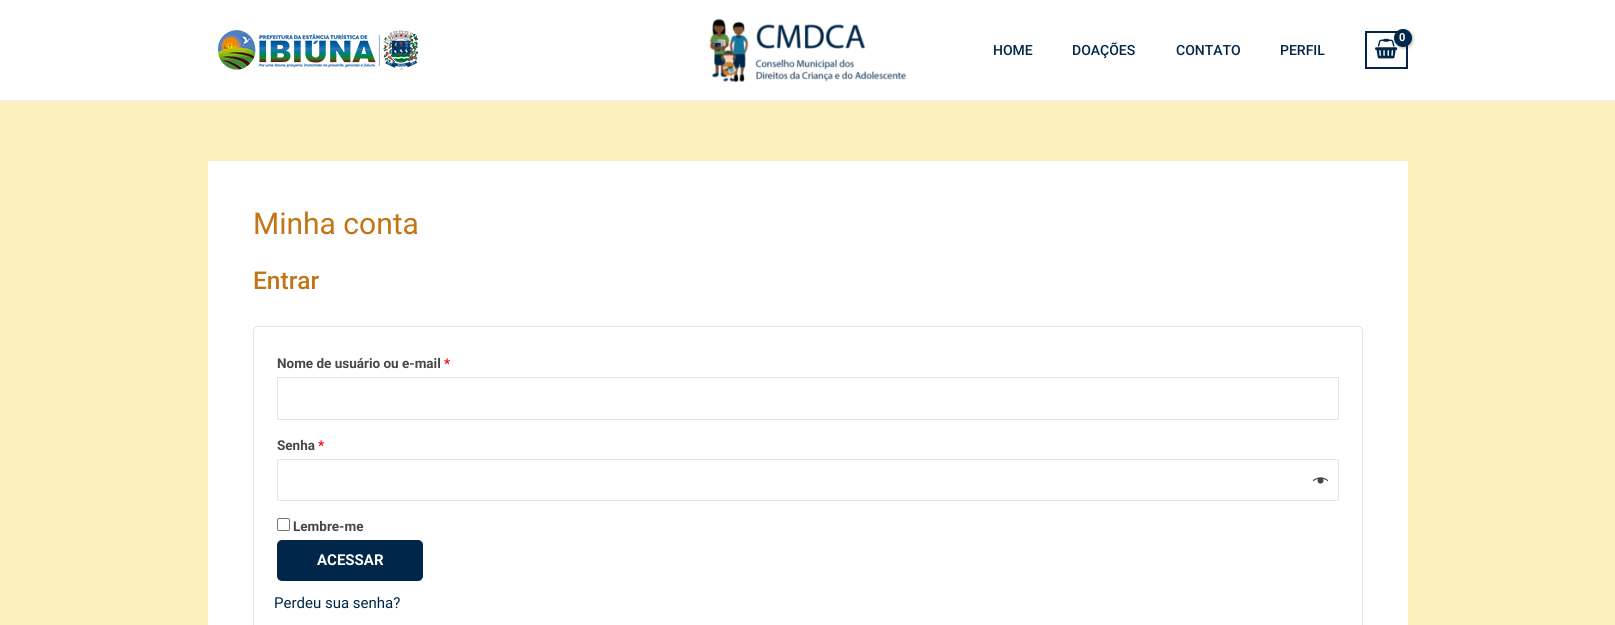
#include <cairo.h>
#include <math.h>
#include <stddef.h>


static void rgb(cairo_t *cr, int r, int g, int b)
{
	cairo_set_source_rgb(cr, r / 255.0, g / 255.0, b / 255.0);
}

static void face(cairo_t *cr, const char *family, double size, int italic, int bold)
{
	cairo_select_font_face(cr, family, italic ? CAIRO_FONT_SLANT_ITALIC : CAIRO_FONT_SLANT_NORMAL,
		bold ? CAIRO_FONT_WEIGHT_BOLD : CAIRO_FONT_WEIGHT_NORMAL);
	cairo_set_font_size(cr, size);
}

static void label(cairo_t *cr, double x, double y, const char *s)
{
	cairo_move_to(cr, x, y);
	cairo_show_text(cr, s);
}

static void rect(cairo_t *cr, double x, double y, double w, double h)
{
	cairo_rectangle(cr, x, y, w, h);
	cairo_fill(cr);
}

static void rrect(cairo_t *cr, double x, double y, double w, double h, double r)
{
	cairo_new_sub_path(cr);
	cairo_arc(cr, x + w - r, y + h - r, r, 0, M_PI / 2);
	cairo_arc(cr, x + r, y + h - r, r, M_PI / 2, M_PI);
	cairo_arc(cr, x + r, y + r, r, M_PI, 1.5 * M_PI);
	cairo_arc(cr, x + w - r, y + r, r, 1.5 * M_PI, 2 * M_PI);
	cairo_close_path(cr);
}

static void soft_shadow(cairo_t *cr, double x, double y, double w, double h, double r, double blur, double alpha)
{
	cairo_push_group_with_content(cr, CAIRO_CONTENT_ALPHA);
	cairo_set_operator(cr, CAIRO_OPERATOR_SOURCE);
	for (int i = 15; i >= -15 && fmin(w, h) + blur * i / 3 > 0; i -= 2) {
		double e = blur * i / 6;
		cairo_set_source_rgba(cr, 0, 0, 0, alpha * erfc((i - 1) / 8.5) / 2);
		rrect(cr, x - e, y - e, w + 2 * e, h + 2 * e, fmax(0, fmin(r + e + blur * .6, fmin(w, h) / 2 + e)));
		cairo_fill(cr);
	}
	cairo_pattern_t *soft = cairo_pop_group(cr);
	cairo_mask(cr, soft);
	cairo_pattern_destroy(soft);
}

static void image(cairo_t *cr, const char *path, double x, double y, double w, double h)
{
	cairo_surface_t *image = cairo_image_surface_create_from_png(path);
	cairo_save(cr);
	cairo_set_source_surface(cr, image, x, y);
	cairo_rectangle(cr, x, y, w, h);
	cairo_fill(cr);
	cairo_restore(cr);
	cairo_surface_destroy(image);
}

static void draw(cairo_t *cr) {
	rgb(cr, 250, 240, 190);
	cairo_paint(cr);
	rgb(cr, 255, 255, 255);
	rect(cr, 0, 0, 1615, 100);
	rgb(cr, 237, 237, 237);
	rect(cr, 0, 100, 1615, 1);
	image(cr, "image0.png", 218, 30, 200, 40);
	image(cr, "image1.png", 709, 18, 198, 65);
	cairo_rectangle(cr, 1366, 32, 41, 36);
	rgb(cr, 0, 39, 73);
	cairo_stroke(cr);
	image(cr, "image2.png", 1375, 38, 23, 21);
	rgb(cr, 0, 0, 0);
	soft_shadow(cr, 1395, 30, 18, 18, 9, 1.5, 0.3);
	rgb(cr, 0, 39, 73);
	cairo_arc(cr, 1403, 38, 9, 0, 2 * M_PI);
	cairo_fill(cr);
	face(cr, "Roboto", 11, 0, 1);
	rgb(cr, 255, 255, 255);
	label(cr, 1399, 41, "0");
	face(cr, "Roboto Medium", 14, 0, 0);
	rgb(cr, 0, 39, 73);
	label(cr, 993, 55, "HOME");
	label(cr, 1072, 55, "DOAÇÕES");
	label(cr, 1176, 55, "CONTATO");
	label(cr, 1280, 55, "PERFIL");
	rgb(cr, 255, 255, 255);
	rect(cr, 208, 161, 1200, 464);
	face(cr, "Roboto", 30, 0, 0);
	rgb(cr, 195, 116, 20);
	label(cr, 253, 234, "Minha conta");
	face(cr, "Roboto Medium", 24.5, 0, 0);
	label(cr, 253, 289, "Entrar");
	rrect(cr, 253.5, 326.5, 1109, 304, 4.5);
	rgb(cr, 229, 229, 229);
	cairo_set_line_width(cr, 1);
	cairo_stroke(cr);
	face(cr, "Roboto", 13.5, 0, 1);
	rgb(cr, 70, 70, 70);
	label(cr, 277, 368, "Nome de usuário ou e-mail");
	rgb(cr, 255, 0, 0);
	label(cr, 444, 368, "*");
	cairo_rectangle(cr, 277.5, 377.5, 1061, 42);
	rgb(cr, 229, 229, 229);
	cairo_stroke(cr);
	rgb(cr, 70, 70, 70);
	label(cr, 277, 450, "Senha");
	rgb(cr, 255, 0, 0);
	label(cr, 318, 450, "*");
	cairo_rectangle(cr, 277.5, 459.5, 1061, 41);
	rgb(cr, 229, 229, 229);
	cairo_stroke(cr);
	image(cr, "image3.png", 1313, 477, 15, 7);
	rrect(cr, 277.5, 518.5, 12, 12, 1.5);
	rgb(cr, 118, 118, 118);
	cairo_stroke(cr);
	rgb(cr, 70, 70, 70);
	label(cr, 293, 531, "Lembre-me");
	rgb(cr, 0, 39, 73);
	rrect(cr, 277, 540, 146, 41, 5);
	cairo_fill(cr);
	face(cr, "Roboto", 15, 0, 1);
	rgb(cr, 255, 255, 255);
	label(cr, 317, 565, "ACESSAR");
	face(cr, "Roboto", 15, 0, 0);
	rgb(cr, 0, 39, 73);
	label(cr, 274, 608, "Perdeu sua senha?");
}

int main(void) {
	cairo_surface_t *surface = cairo_image_surface_create(CAIRO_FORMAT_RGB24, 1615, 625);
	cairo_t *cr = cairo_create(surface);
	cairo_font_options_t *options = cairo_font_options_create();
	cairo_font_options_set_hint_metrics(options, CAIRO_HINT_METRICS_OFF);
	cairo_font_options_set_hint_style(options, CAIRO_HINT_STYLE_NONE);
	cairo_set_font_options(cr, options);
	cairo_set_miter_limit(cr, 4);
	draw(cr);
	cairo_surface_write_to_png(surface, "render.png");
	cairo_font_options_destroy(options);
	cairo_destroy(cr);
	cairo_surface_destroy(surface);
	return 0;
}
